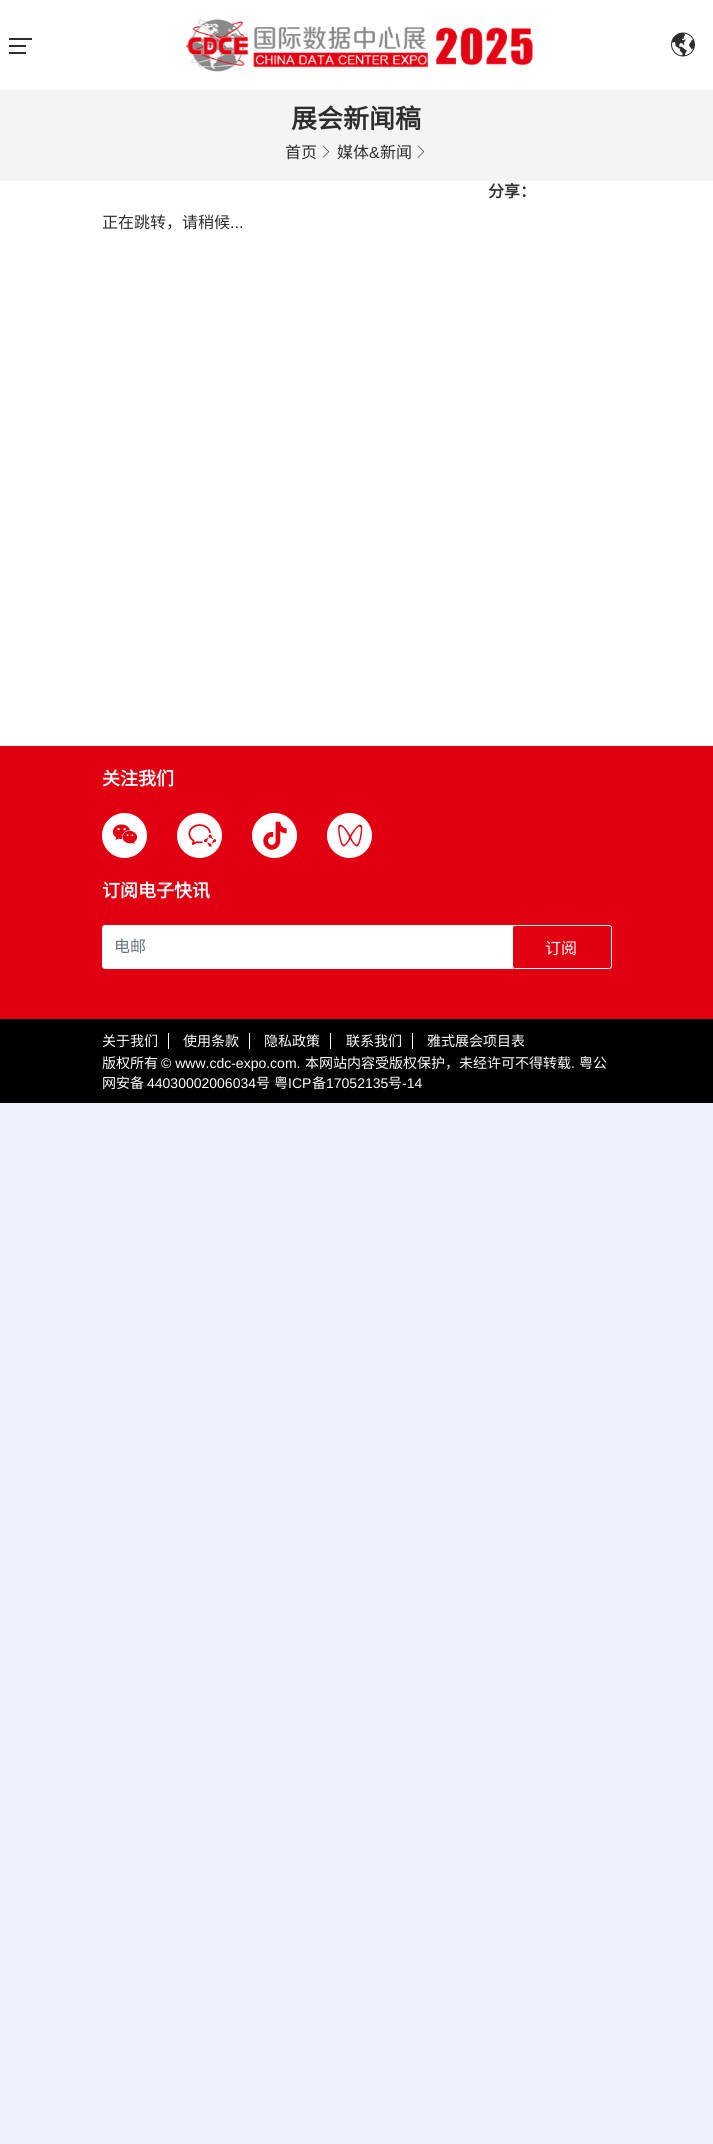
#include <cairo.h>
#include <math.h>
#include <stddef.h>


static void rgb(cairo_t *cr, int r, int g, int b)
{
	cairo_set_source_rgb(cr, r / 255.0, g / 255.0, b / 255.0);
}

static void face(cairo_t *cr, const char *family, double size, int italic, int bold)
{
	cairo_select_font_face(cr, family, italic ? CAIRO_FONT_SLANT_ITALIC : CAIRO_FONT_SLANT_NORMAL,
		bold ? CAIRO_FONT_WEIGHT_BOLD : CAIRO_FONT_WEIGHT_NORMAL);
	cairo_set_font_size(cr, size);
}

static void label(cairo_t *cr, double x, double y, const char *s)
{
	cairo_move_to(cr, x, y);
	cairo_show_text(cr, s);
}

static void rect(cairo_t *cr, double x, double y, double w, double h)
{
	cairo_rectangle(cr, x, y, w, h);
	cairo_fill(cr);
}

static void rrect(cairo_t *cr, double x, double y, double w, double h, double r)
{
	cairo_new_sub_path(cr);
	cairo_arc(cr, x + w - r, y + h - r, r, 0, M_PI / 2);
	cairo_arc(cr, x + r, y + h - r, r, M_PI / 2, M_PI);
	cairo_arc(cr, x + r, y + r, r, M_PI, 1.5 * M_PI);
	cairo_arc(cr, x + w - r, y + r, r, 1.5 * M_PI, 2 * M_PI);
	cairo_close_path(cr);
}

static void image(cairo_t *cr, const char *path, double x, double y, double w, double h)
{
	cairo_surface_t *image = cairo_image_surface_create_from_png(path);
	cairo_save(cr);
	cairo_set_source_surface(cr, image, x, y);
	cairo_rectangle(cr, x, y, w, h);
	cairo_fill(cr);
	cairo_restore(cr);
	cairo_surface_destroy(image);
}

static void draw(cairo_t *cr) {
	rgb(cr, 238, 242, 251);
	cairo_paint(cr);
	rgb(cr, 255, 255, 255);
	rect(cr, 0, 0, 713, 746);
	rgb(cr, 46, 46, 46);
	rect(cr, 9, 45, 17, 2);
	rect(cr, 9, 38, 23, 2);
	rect(cr, 9, 52, 17, 2);
	image(cr, "image0.png", 186, 19, 347, 53);
	image(cr, "image1.png", 671, 32, 24, 25);
	rgb(cr, 244, 244, 244);
	rect(cr, 0, 90, 713, 91);
	face(cr, "Noto Sans CJK SC", 26, 0, 1);
	rgb(cr, 46, 46, 46);
	label(cr, 291, 128, "展会新闻稿");
	face(cr, "Noto Sans CJK SC", 16, 0, 0);
	label(cr, 285, 158, "首页");
	image(cr, "image2.png", 322, 145, 8, 13);
	label(cr, 337, 158, "媒体");
	face(cr, "Liberation Sans", 16, 0, 0);
	label(cr, 369, 158, "&");
	face(cr, "Noto Sans CJK SC", 16, 0, 0);
	label(cr, 380, 158, "新闻");
	image(cr, "image2.png", 417, 145, 8, 13);
	face(cr, "Noto Sans CJK SC", 16, 0, 1);
	label(cr, 488, 197, "分享：");
	face(cr, "Noto Sans CJK SC", 16, 0, 0);
	label(cr, 102, 228, "正在跳转，请稍候");
	face(cr, "Liberation Sans", 16, 0, 0);
	label(cr, 230, 228, "...");
	rgb(cr, 225, 0, 18);
	rect(cr, 0, 746, 713, 273);
	face(cr, "Noto Sans CJK SC", 18, 0, 1);
	rgb(cr, 255, 255, 255);
	label(cr, 102, 785, "关注我们");
	cairo_new_path(cr);
	cairo_arc(cr, 124.5, 835.5, 21.5, 0, 2 * M_PI);
	cairo_fill_preserve(cr);
	cairo_stroke(cr);
	image(cr, "image3.png", 112, 824, 26, 21);
	cairo_arc(cr, 199.5, 835.5, 21.5, 0, 2 * M_PI);
	cairo_fill_preserve(cr);
	cairo_stroke(cr);
	image(cr, "image4.png", 188, 824, 29, 23);
	cairo_arc(cr, 274.5, 835.5, 21.5, 0, 2 * M_PI);
	cairo_fill_preserve(cr);
	cairo_stroke(cr);
	image(cr, "image5.png", 263, 821, 24, 29);
	cairo_arc(cr, 349.5, 835.5, 21.5, 0, 2 * M_PI);
	cairo_fill_preserve(cr);
	cairo_stroke(cr);
	image(cr, "image6.png", 338, 824, 25, 23);
	label(cr, 102, 897, "订阅电子快讯");
	rrect(cr, 512.5, 925.5, 99, 43, 2.5);
	cairo_set_line_width(cr, 1);
	cairo_stroke(cr);
	cairo_new_path(cr);
	cairo_move_to(cr, 105, 925);
	cairo_line_to(cr, 513, 925);
	cairo_line_to(cr, 513, 969);
	cairo_line_to(cr, 105, 969);
	cairo_curve_to(cr, 103.5, 969, 102, 967.5, 102, 966);
	cairo_line_to(cr, 102, 928);
	cairo_curve_to(cr, 102, 926.5, 103.5, 925, 105, 925);
	cairo_close_path(cr);
	cairo_fill(cr);
	face(cr, "Noto Sans CJK SC", 16, 0, 0);
	rgb(cr, 108, 117, 125);
	label(cr, 114, 952, "电邮");
	rgb(cr, 255, 255, 255);
	label(cr, 545, 954, "订阅");
	rgb(cr, 0, 0, 0);
	rect(cr, 0, 1019, 713, 84);
	face(cr, "Noto Sans CJK SC", 14, 0, 0);
	rgb(cr, 255, 255, 255);
	label(cr, 102, 1046, "关于我们");
	rect(cr, 168, 1033, 1, 16);
	label(cr, 183, 1046, "使用条款");
	rect(cr, 249, 1033, 1, 16);
	label(cr, 264, 1046, "隐私政策");
	rect(cr, 330, 1033, 1, 16);
	label(cr, 346, 1046, "联系我们");
	rect(cr, 412, 1033, 1, 16);
	label(cr, 427, 1046, "雅式展会项目表");
	label(cr, 102, 1068, "版权所有");
	face(cr, "Liberation Sans", 14, 0, 0);
	label(cr, 161, 1068, "© www.cdc-expo.com.");
	face(cr, "Noto Sans CJK SC", 14, 0, 0);
	label(cr, 305, 1068, "本网站内容受版权保护，未经许可不得转载");
	face(cr, "Liberation Sans", 14, 0, 0);
	label(cr, 571, 1068, ".");
	face(cr, "Noto Sans CJK SC", 14, 0, 0);
	label(cr, 579, 1068, "粤公");
	label(cr, 102, 1088, "网安备");
	face(cr, "Liberation Sans", 14, 0, 0);
	label(cr, 147, 1088, "44030002006034");
	face(cr, "Noto Sans CJK SC", 14, 0, 0);
	label(cr, 256, 1088, "号");
	label(cr, 274, 1088, "粤");
	face(cr, "Liberation Sans", 14, 0, 0);
	label(cr, 288, 1088, "ICP");
	face(cr, "Noto Sans CJK SC", 14, 0, 0);
	label(cr, 312, 1088, "备");
	face(cr, "Liberation Sans", 14, 0, 0);
	label(cr, 326, 1088, "17052135");
	face(cr, "Noto Sans CJK SC", 14, 0, 0);
	label(cr, 388, 1088, "号");
	face(cr, "Liberation Sans", 14, 0, 0);
	label(cr, 402, 1088, "-14");
}

int main(void) {
	cairo_surface_t *surface = cairo_image_surface_create(CAIRO_FORMAT_RGB24, 713, 2144);
	cairo_t *cr = cairo_create(surface);
	cairo_font_options_t *options = cairo_font_options_create();
	cairo_font_options_set_hint_metrics(options, CAIRO_HINT_METRICS_OFF);
	cairo_font_options_set_hint_style(options, CAIRO_HINT_STYLE_NONE);
	cairo_set_font_options(cr, options);
	cairo_set_miter_limit(cr, 4);
	draw(cr);
	cairo_surface_write_to_png(surface, "render.png");
	cairo_font_options_destroy(options);
	cairo_destroy(cr);
	cairo_surface_destroy(surface);
	return 0;
}
